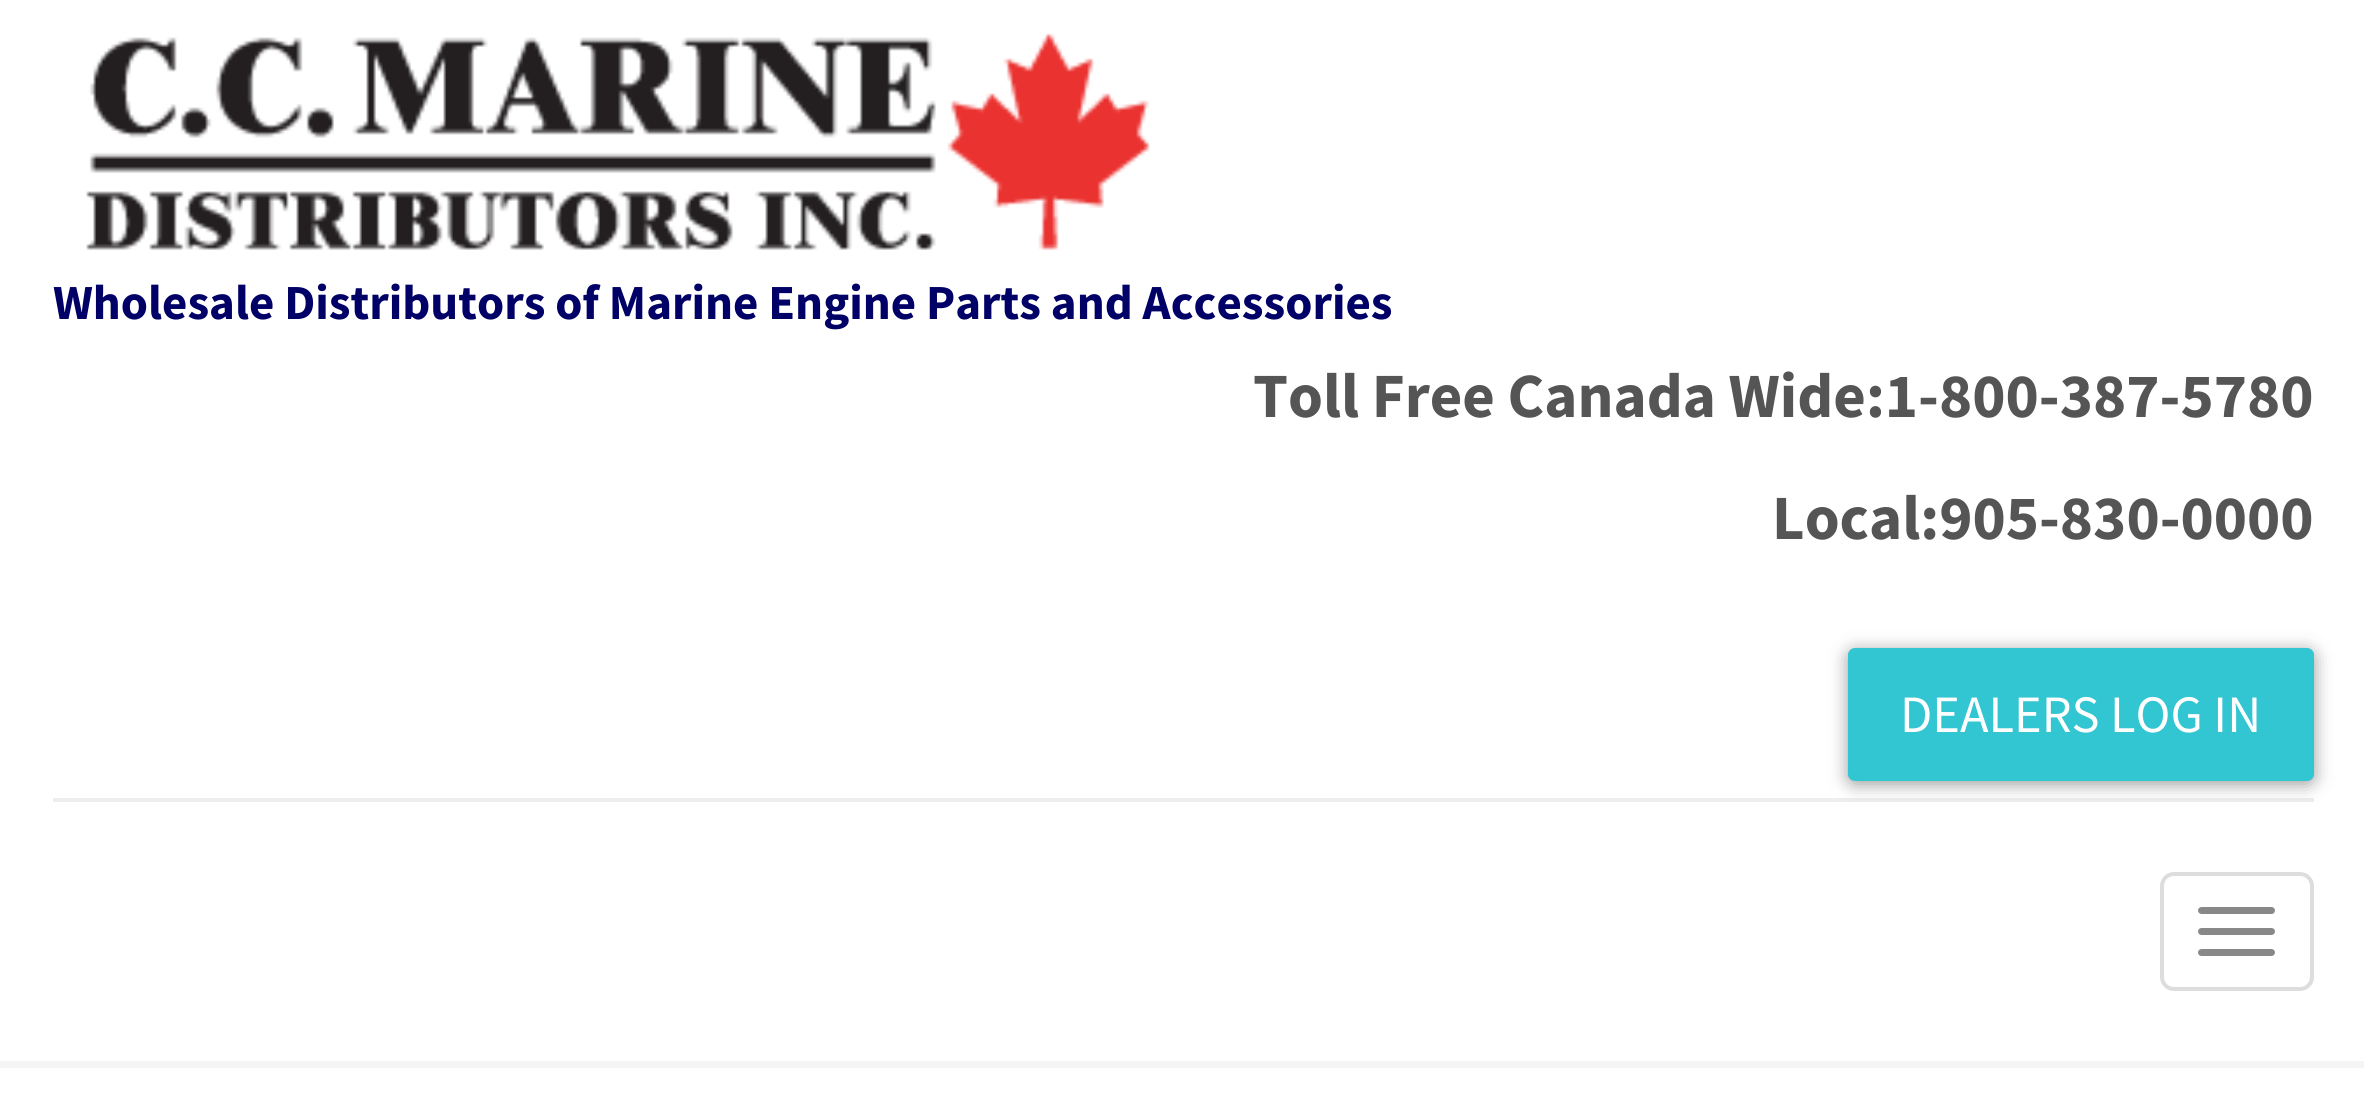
#include <cairo.h>
#include <math.h>
#include <stddef.h>


static void rgb(cairo_t *cr, int r, int g, int b)
{
	cairo_set_source_rgb(cr, r / 255.0, g / 255.0, b / 255.0);
}

static void face(cairo_t *cr, const char *family, double size, int italic, int bold)
{
	cairo_select_font_face(cr, family, italic ? CAIRO_FONT_SLANT_ITALIC : CAIRO_FONT_SLANT_NORMAL,
		bold ? CAIRO_FONT_WEIGHT_BOLD : CAIRO_FONT_WEIGHT_NORMAL);
	cairo_set_font_size(cr, size);
}

static void label(cairo_t *cr, double x, double y, const char *s)
{
	cairo_move_to(cr, x, y);
	cairo_show_text(cr, s);
}

static void rect(cairo_t *cr, double x, double y, double w, double h)
{
	cairo_rectangle(cr, x, y, w, h);
	cairo_fill(cr);
}

static void rrect(cairo_t *cr, double x, double y, double w, double h, double r)
{
	cairo_new_sub_path(cr);
	cairo_arc(cr, x + w - r, y + h - r, r, 0, M_PI / 2);
	cairo_arc(cr, x + r, y + h - r, r, M_PI / 2, M_PI);
	cairo_arc(cr, x + r, y + r, r, M_PI, 1.5 * M_PI);
	cairo_arc(cr, x + w - r, y + r, r, 1.5 * M_PI, 2 * M_PI);
	cairo_close_path(cr);
}

static void soft_shadow(cairo_t *cr, double x, double y, double w, double h, double r, double blur, double alpha)
{
	cairo_push_group_with_content(cr, CAIRO_CONTENT_ALPHA);
	cairo_set_operator(cr, CAIRO_OPERATOR_SOURCE);
	for (int i = 15; i >= -15 && fmin(w, h) + blur * i / 3 > 0; i -= 2) {
		double e = blur * i / 6;
		cairo_set_source_rgba(cr, 0, 0, 0, alpha * erfc((i - 1) / 8.5) / 2);
		rrect(cr, x - e, y - e, w + 2 * e, h + 2 * e, fmax(0, fmin(r + e + blur * .6, fmin(w, h) / 2 + e)));
		cairo_fill(cr);
	}
	cairo_pattern_t *soft = cairo_pop_group(cr);
	cairo_mask(cr, soft);
	cairo_pattern_destroy(soft);
}

static void image(cairo_t *cr, const char *path, double x, double y, double w, double h)
{
	cairo_surface_t *image = cairo_image_surface_create_from_png(path);
	cairo_save(cr);
	cairo_set_source_surface(cr, image, x, y);
	cairo_rectangle(cr, x, y, w, h);
	cairo_fill(cr);
	cairo_restore(cr);
	cairo_surface_destroy(image);
}

static void draw(cairo_t *cr) {
	rgb(cr, 255, 255, 255);
	cairo_paint(cr);
	rgb(cr, 238, 238, 238);
	rect(cr, 53, 798, 2261, 4);
	image(cr, "image0.png", 86, 33, 1064, 217);
	face(cr, "Source Sans Pro", 49, 0, 1);
	rgb(cr, 0, 0, 102);
	label(cr, 53, 319, "Wholesale Distributors of Marine Engine Parts and Accessories");
	face(cr, "Source Sans Pro", 63, 0, 1);
	rgb(cr, 85, 85, 85);
	label(cr, 1253, 417, "Toll Free Canada Wide:1-800-387-5780");
	label(cr, 1772, 539, "Local:905-830-0000");
	rgb(cr, 0, 0, 0);
	soft_shadow(cr, 1848, 651, 466, 133, 7, 9, 0.4);
	rgb(cr, 50, 197, 210);
	rrect(cr, 1848, 648, 466, 133, 7);
	cairo_fill(cr);
	face(cr, "Source Sans Pro", 52.5, 0, 0);
	rgb(cr, 255, 255, 255);
	label(cr, 1900, 732, "DEALERS LOG IN");
	rgb(cr, 245, 245, 245);
	rect(cr, 0, 1061, 2364, 7);
	rrect(cr, 2162, 874, 150, 115, 12);
	rgb(cr, 221, 221, 221);
	cairo_set_line_width(cr, 4);
	cairo_stroke(cr);
	rgb(cr, 136, 136, 136);
	rrect(cr, 2198, 907, 77, 7, 3.5);
	cairo_fill(cr);
	rrect(cr, 2198, 928, 77, 7, 3.5);
	cairo_fill(cr);
	rrect(cr, 2198, 949, 77, 7, 3.5);
	cairo_fill(cr);
}

int main(void) {
	cairo_surface_t *surface = cairo_image_surface_create(CAIRO_FORMAT_RGB24, 2364, 1111);
	cairo_t *cr = cairo_create(surface);
	cairo_font_options_t *options = cairo_font_options_create();
	cairo_font_options_set_hint_metrics(options, CAIRO_HINT_METRICS_OFF);
	cairo_font_options_set_hint_style(options, CAIRO_HINT_STYLE_NONE);
	cairo_set_font_options(cr, options);
	cairo_set_miter_limit(cr, 4);
	draw(cr);
	cairo_surface_write_to_png(surface, "render.png");
	cairo_font_options_destroy(options);
	cairo_destroy(cr);
	cairo_surface_destroy(surface);
	return 0;
}
